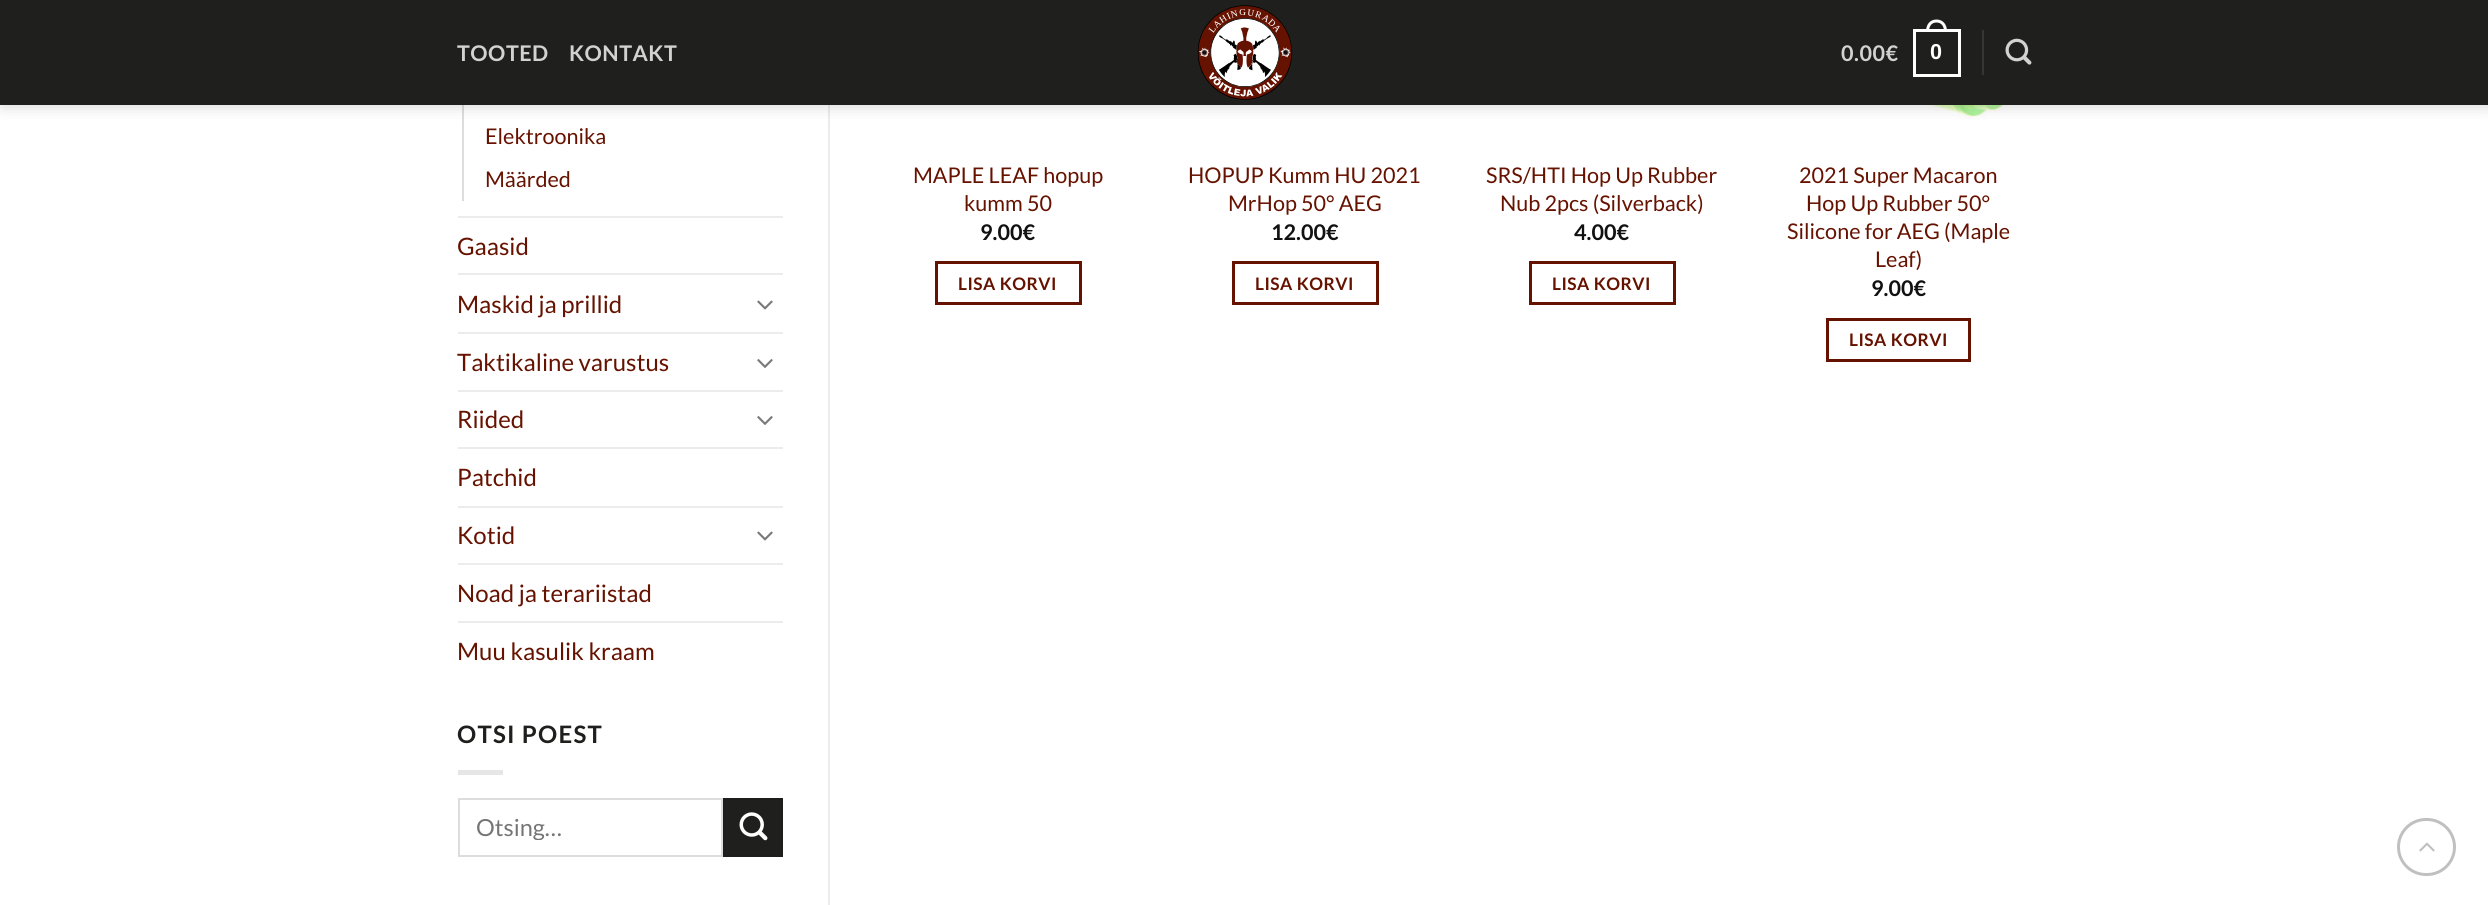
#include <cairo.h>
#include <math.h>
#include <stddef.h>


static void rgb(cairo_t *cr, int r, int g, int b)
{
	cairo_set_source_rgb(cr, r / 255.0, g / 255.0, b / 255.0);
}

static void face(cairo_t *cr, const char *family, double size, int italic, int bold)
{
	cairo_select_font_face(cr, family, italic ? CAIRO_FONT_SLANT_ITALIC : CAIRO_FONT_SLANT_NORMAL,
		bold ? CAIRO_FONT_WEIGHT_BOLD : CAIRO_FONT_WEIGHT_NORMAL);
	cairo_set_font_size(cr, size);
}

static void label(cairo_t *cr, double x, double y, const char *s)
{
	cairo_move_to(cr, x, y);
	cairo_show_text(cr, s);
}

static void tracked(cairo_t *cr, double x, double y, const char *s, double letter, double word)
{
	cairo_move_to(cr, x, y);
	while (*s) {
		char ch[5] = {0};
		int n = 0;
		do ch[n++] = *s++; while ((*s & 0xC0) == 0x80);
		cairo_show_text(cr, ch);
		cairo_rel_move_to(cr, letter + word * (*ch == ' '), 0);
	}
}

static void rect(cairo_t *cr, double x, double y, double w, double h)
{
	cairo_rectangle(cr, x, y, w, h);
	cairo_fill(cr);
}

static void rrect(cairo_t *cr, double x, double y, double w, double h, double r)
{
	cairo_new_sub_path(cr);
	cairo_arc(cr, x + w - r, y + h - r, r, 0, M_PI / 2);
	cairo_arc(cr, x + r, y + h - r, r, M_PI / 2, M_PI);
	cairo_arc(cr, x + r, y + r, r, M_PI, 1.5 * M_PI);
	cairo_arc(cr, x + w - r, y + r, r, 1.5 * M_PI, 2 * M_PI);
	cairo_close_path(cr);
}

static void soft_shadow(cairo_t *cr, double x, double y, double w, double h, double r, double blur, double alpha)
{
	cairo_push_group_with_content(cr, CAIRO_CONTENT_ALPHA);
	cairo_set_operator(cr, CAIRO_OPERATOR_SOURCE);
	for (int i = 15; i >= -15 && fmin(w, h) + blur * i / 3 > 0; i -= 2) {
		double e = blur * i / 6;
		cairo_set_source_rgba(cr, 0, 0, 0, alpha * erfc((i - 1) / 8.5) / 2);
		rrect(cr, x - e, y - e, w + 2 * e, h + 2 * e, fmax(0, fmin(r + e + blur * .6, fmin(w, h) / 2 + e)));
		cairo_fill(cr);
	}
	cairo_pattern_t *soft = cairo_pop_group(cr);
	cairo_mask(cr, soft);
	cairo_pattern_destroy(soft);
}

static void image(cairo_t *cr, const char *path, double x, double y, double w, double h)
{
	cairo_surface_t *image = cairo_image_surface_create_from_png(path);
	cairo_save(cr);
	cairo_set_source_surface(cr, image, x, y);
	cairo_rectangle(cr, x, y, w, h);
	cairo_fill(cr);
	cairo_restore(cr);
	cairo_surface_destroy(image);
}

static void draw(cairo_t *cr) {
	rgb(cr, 255, 255, 255);
	cairo_paint(cr);
	rgb(cr, 221, 221, 221);
	rect(cr, 462, 105, 2, 96);
	rgb(cr, 236, 236, 236);
	rect(cr, 828, 105, 2, 800);
	image(cr, "image5.png", 1771, 105, 258, 15);
	rgb(cr, 0, 0, 0);
	soft_shadow(cr, 2, 2, 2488, 105, 0, 7.5, 0.15);
	rgb(cr, 31, 31, 29);
	rect(cr, 0, 0, 2488, 105);
	face(cr, "Lato", 21.6, 0, 1);
	rgb(cr, 210, 210, 210);
	tracked(cr, 457, 61, "TOOTED", 0.5, 0);
	tracked(cr, 569, 61, "KONTAKT", 0.5, 0);
	image(cr, "image0.png", 1197, 5, 96, 95);
	tracked(cr, 1841, 61, "0.00€", 0.5, 0);
	cairo_rectangle(cr, 1914.5, 30.5, 45, 45);
	rgb(cr, 255, 255, 255);
	cairo_set_line_width(cr, 3);
	cairo_stroke(cr);
	cairo_set_fill_rule(cr, CAIRO_FILL_RULE_EVEN_ODD);
	cairo_new_path(cr);
	cairo_move_to(cr, 1936.5, 19.5);
	cairo_curve_to(cr, 1943.5, 19.5, 1947, 25, 1947, 31.5);
	cairo_line_to(cr, 1926, 31.5);
	cairo_curve_to(cr, 1926, 25, 1929.5, 19.5, 1936.5, 19.5);
	cairo_close_path(cr);
	cairo_move_to(cr, 1936.5, 22.5);
	cairo_curve_to(cr, 1942, 22.5, 1944, 27, 1944, 31.5);
	cairo_line_to(cr, 1929, 31.5);
	cairo_curve_to(cr, 1929, 27, 1931, 22.5, 1936.5, 22.5);
	cairo_close_path(cr);
	cairo_fill(cr);
	face(cr, "Liberation Sans", 21.6, 0, 1);
	tracked(cr, 1930, 59, "0", 0.5, 0);
	rgb(cr, 53, 53, 52);
	rect(cr, 1982, 30, 2, 45);
	image(cr, "image1.png", 2005, 38, 27, 27);
	face(cr, "Lato", 21.6, 0, 0);
	rgb(cr, 102, 18, 0);
	label(cr, 485, 144, "Elektroonika");
	label(cr, 485, 187, "Määrded");
	rgb(cr, 236, 236, 236);
	rect(cr, 458, 216, 325, 2);
	face(cr, "Lato", 24, 0, 0);
	rgb(cr, 102, 18, 0);
	label(cr, 457, 255, "Gaasid");
	rgb(cr, 236, 236, 236);
	rect(cr, 458, 273, 325, 2);
	rgb(cr, 102, 18, 0);
	label(cr, 457, 313, "Maskid ja prillid");
	image(cr, "image2.png", 757, 300, 16, 10);
	rgb(cr, 236, 236, 236);
	rect(cr, 458, 332, 325, 2);
	rgb(cr, 102, 18, 0);
	label(cr, 457, 371, "Taktikaline varustus");
	image(cr, "image3.png", 757, 359, 16, 9);
	rgb(cr, 236, 236, 236);
	rect(cr, 458, 390, 325, 2);
	rgb(cr, 102, 18, 0);
	label(cr, 457, 428, "Riided");
	image(cr, "image3.png", 757, 416, 16, 9);
	rgb(cr, 236, 236, 236);
	rect(cr, 458, 447, 325, 2);
	rgb(cr, 102, 18, 0);
	label(cr, 457, 486, "Patchid");
	rgb(cr, 236, 236, 236);
	rect(cr, 458, 506, 325, 2);
	rgb(cr, 102, 18, 0);
	label(cr, 457, 544, "Kotid");
	image(cr, "image2.png", 757, 531, 16, 10);
	rgb(cr, 236, 236, 236);
	rect(cr, 458, 563, 325, 2);
	rgb(cr, 102, 18, 0);
	label(cr, 457, 602, "Noad ja terariistad");
	rgb(cr, 236, 236, 236);
	rect(cr, 458, 621, 325, 2);
	rgb(cr, 102, 18, 0);
	label(cr, 457, 660, "Muu kasulik kraam");
	face(cr, "Lato", 24, 0, 1);
	rgb(cr, 31, 31, 29);
	tracked(cr, 457, 743, "OTSI POEST", 1.25, 0);
	rgb(cr, 230, 230, 230);
	rect(cr, 458, 770, 45, 5);
	cairo_rectangle(cr, 459, 799, 263, 57);
	rgb(cr, 221, 221, 221);
	cairo_set_line_width(cr, 2);
	cairo_stroke(cr);
	cairo_save(cr);
	cairo_set_fill_rule(cr, CAIRO_FILL_RULE_WINDING);
	cairo_rectangle(cr, 476, 813, 223, 27);
	cairo_clip(cr);
	face(cr, "Lato", 23.5, 0, 0);
	rgb(cr, 117, 117, 117);
	label(cr, 476, 836, "Otsing…");
	cairo_restore(cr);
	rgb(cr, 31, 31, 29);
	cairo_rectangle(cr, 724, 799, 58, 57);
	cairo_fill_preserve(cr);
	rgb(cr, 29, 29, 28);
	cairo_stroke(cr);
	image(cr, "image4.png", 739, 812, 29, 29);
	face(cr, "Lato", 21.6, 0, 0);
	rgb(cr, 102, 18, 0);
	label(cr, 913, 183, "MAPLE LEAF hopup");
	label(cr, 964, 211, "kumm 50");
	face(cr, "Lato", 21.6, 0, 1);
	rgb(cr, 17, 17, 17);
	label(cr, 980, 240, "9.00€");
	cairo_rectangle(cr, 936.5, 262.5, 144, 41);
	rgb(cr, 102, 18, 0);
	cairo_set_line_width(cr, 3);
	cairo_stroke(cr);
	face(cr, "Lato", 17.25, 0, 1);
	tracked(cr, 958, 290, "LISA KORVI", 0.5, 0);
	face(cr, "Lato", 21.6, 0, 0);
	label(cr, 1188, 183, "HOPUP Kumm HU 2021");
	label(cr, 1228, 211, "MrHop 50° AEG");
	face(cr, "Lato", 21.6, 0, 1);
	rgb(cr, 17, 17, 17);
	label(cr, 1271, 240, "12.00€");
	cairo_rectangle(cr, 1233.5, 262.5, 144, 41);
	rgb(cr, 102, 18, 0);
	cairo_stroke(cr);
	face(cr, "Lato", 17.25, 0, 1);
	tracked(cr, 1255, 290, "LISA KORVI", 0.5, 0);
	face(cr, "Lato", 21.6, 0, 0);
	label(cr, 1486, 183, "SRS/HTI Hop Up Rubber");
	label(cr, 1500, 211, "Nub 2pcs (Silverback)");
	face(cr, "Lato", 21.6, 0, 1);
	rgb(cr, 17, 17, 17);
	label(cr, 1574, 240, "4.00€");
	cairo_rectangle(cr, 1530.5, 262.5, 144, 41);
	rgb(cr, 102, 18, 0);
	cairo_stroke(cr);
	face(cr, "Lato", 17.25, 0, 1);
	tracked(cr, 1552, 290, "LISA KORVI", 0.5, 0);
	face(cr, "Lato", 21.6, 0, 0);
	label(cr, 1799, 183, "2021 Super Macaron");
	label(cr, 1806, 211, "Hop Up Rubber 50°");
	label(cr, 1787, 239, "Silicone for AEG (Maple");
	label(cr, 1875, 267, "Leaf)");
	face(cr, "Lato", 21.6, 0, 1);
	rgb(cr, 17, 17, 17);
	label(cr, 1871, 296, "9.00€");
	cairo_rectangle(cr, 1827.5, 319.5, 142, 41);
	rgb(cr, 102, 18, 0);
	cairo_stroke(cr);
	face(cr, "Lato", 17.25, 0, 1);
	tracked(cr, 1849, 346, "LISA KORVI", 0.5, 0);
	rrect(cr, 2398.5, 819.5, 56, 55, 27.5);
	rgb(cr, 192, 192, 192);
	cairo_stroke(cr);
	image(cr, "image6.png", 2419, 842, 16, 10);
}

int main(void) {
	cairo_surface_t *surface = cairo_image_surface_create(CAIRO_FORMAT_RGB24, 2488, 905);
	cairo_t *cr = cairo_create(surface);
	cairo_font_options_t *options = cairo_font_options_create();
	cairo_font_options_set_hint_metrics(options, CAIRO_HINT_METRICS_OFF);
	cairo_font_options_set_hint_style(options, CAIRO_HINT_STYLE_NONE);
	cairo_set_font_options(cr, options);
	cairo_set_miter_limit(cr, 4);
	draw(cr);
	cairo_surface_write_to_png(surface, "render.png");
	cairo_font_options_destroy(options);
	cairo_destroy(cr);
	cairo_surface_destroy(surface);
	return 0;
}
